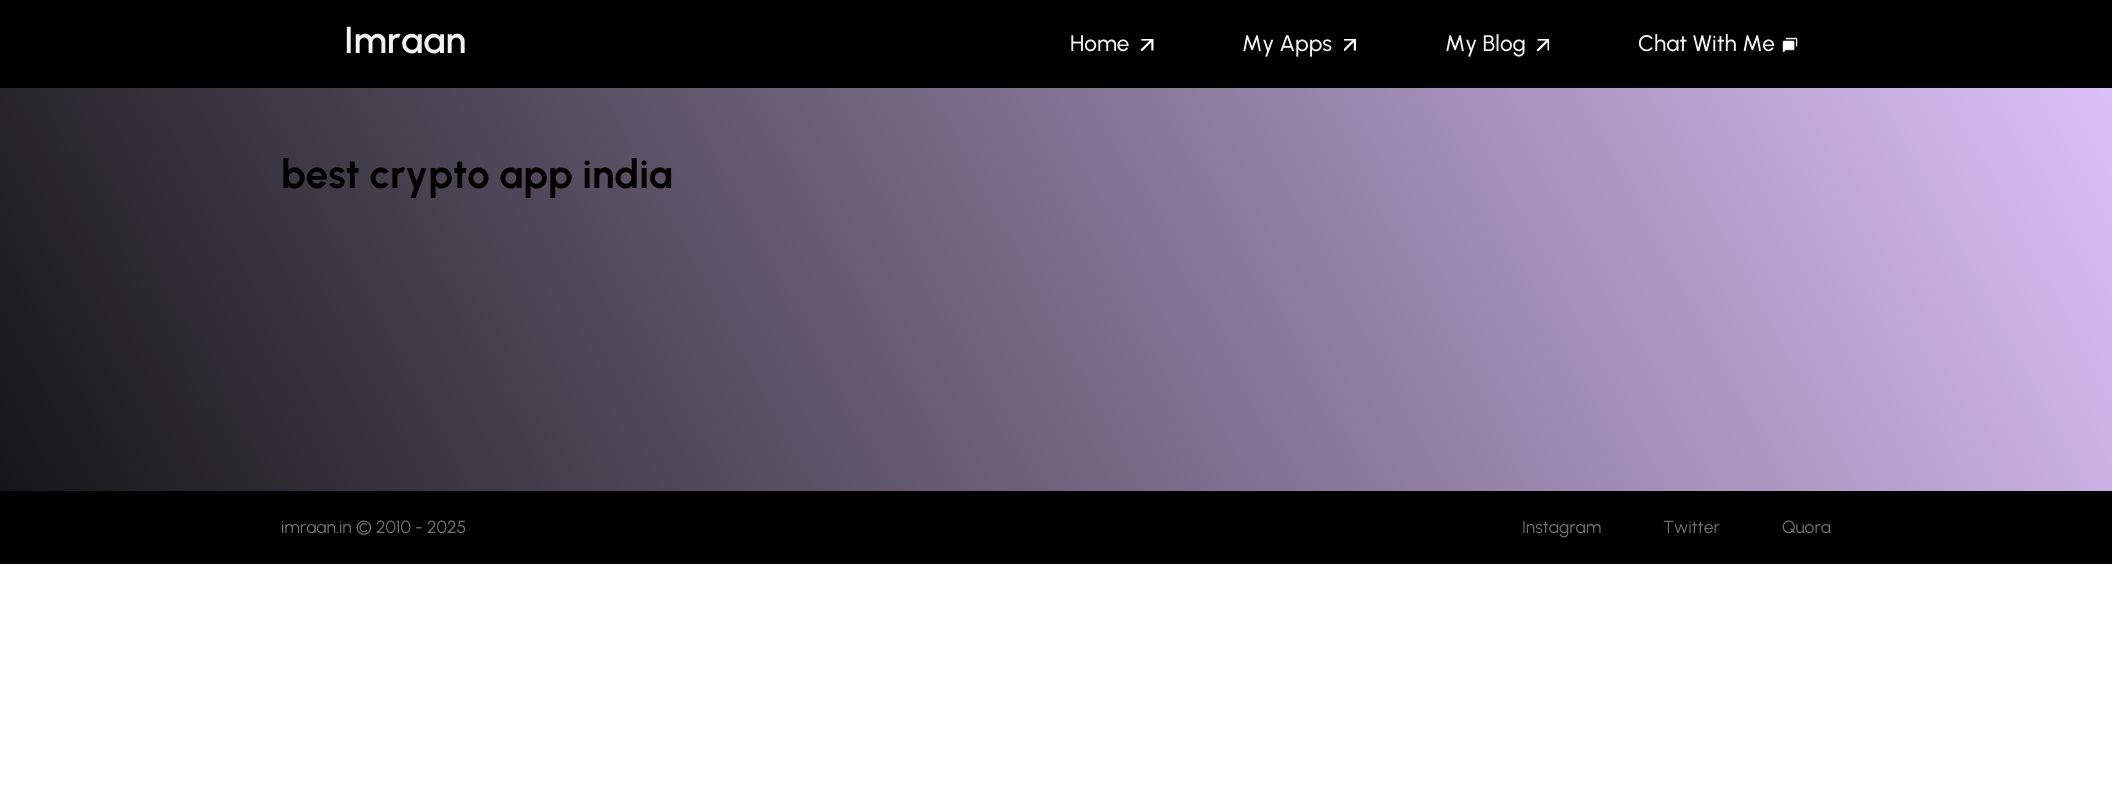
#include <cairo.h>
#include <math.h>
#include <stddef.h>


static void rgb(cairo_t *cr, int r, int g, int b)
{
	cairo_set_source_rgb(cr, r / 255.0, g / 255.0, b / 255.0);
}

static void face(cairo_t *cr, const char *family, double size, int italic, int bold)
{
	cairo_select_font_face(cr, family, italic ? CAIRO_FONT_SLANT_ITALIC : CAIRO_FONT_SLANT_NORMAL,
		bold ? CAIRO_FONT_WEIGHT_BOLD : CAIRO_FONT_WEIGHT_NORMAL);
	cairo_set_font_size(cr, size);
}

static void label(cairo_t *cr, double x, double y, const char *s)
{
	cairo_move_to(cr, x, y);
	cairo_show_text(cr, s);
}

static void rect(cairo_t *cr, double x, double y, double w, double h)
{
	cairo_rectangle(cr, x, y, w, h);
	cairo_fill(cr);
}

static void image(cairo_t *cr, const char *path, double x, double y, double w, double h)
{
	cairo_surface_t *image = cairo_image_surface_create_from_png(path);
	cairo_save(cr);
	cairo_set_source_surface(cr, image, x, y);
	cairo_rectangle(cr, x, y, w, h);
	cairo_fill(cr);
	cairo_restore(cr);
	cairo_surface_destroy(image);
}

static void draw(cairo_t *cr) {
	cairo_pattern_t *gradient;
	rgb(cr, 255, 255, 255);
	cairo_paint(cr);
	rgb(cr, 0, 0, 0);
	rect(cr, 0, 0, 2112, 88);
	face(cr, "Urbanist SemiBold", 37.5, 0, 0);
	rgb(cr, 242, 242, 242);
	label(cr, 344, 53, "Imraan");
	face(cr, "Urbanist Medium", 22.5, 0, 0);
	label(cr, 1070, 51, "Home");
	image(cr, "image0.png", 1141, 39, 13, 12);
	label(cr, 1242, 51, "My Apps");
	image(cr, "image1.png", 1344, 39, 12, 12);
	label(cr, 1445, 51, "My Blog");
	image(cr, "image2.png", 1536, 39, 13, 12);
	label(cr, 1638, 51, "Chat With Me");
	image(cr, "image3.png", 1782, 37, 16, 16);
	gradient = cairo_pattern_create_linear(131, 738, 1982, -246);
	cairo_pattern_add_color_stop_rgba(gradient, 0, 0.082, 0.086, 0.09, 1);
	cairo_pattern_add_color_stop_rgba(gradient, 1, 0.878, 0.765, 0.988, 1);
	cairo_set_source(cr, gradient);
	cairo_pattern_destroy(gradient);
	rect(cr, 0, 88, 2112, 403);
	face(cr, "Urbanist", 40, 0, 1);
	rgb(cr, 0, 0, 0);
	label(cr, 281, 188, "best crypto app india");
	rect(cr, 0, 491, 2112, 73);
	face(cr, "Urbanist", 17.5, 0, 0);
	rgb(cr, 114, 115, 115);
	label(cr, 281, 533, "imraan.in © 2010 - 2025");
	label(cr, 1522, 533, "Instagram");
	label(cr, 1663, 533, "Twitter");
	label(cr, 1782, 533, "Quora");
}

int main(void) {
	cairo_surface_t *surface = cairo_image_surface_create(CAIRO_FORMAT_RGB24, 2112, 785);
	cairo_t *cr = cairo_create(surface);
	cairo_font_options_t *options = cairo_font_options_create();
	cairo_font_options_set_hint_metrics(options, CAIRO_HINT_METRICS_OFF);
	cairo_font_options_set_hint_style(options, CAIRO_HINT_STYLE_NONE);
	cairo_set_font_options(cr, options);
	cairo_set_miter_limit(cr, 4);
	draw(cr);
	cairo_surface_write_to_png(surface, "render.png");
	cairo_font_options_destroy(options);
	cairo_destroy(cr);
	cairo_surface_destroy(surface);
	return 0;
}
